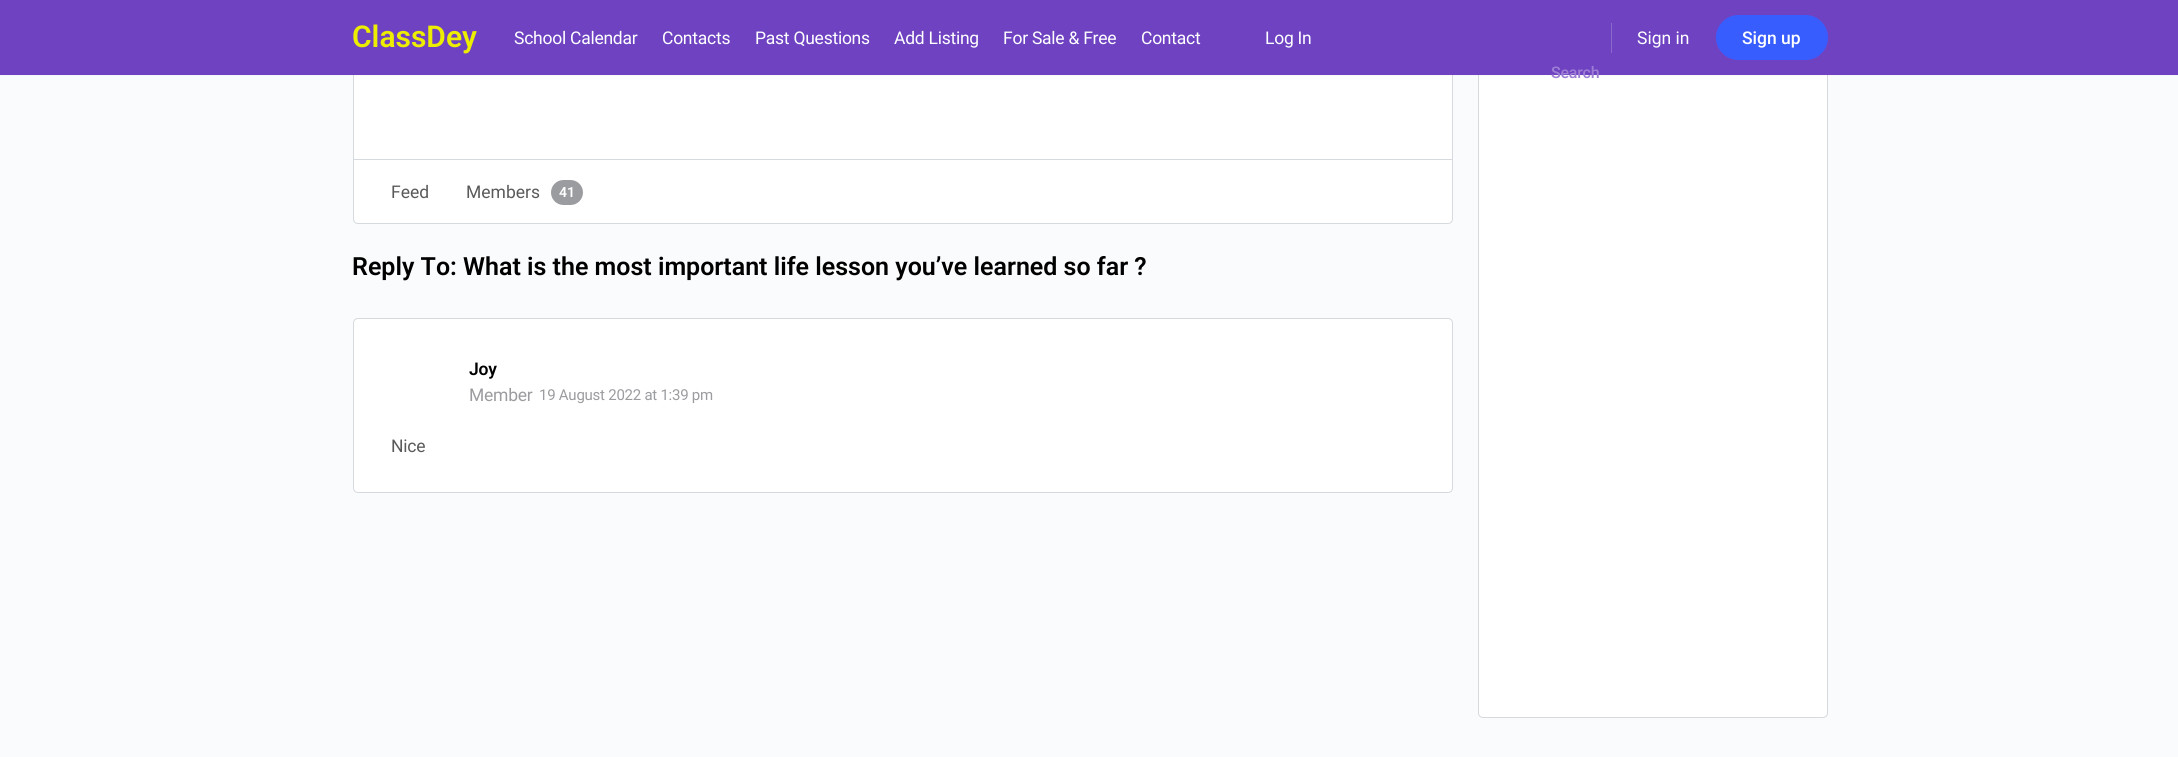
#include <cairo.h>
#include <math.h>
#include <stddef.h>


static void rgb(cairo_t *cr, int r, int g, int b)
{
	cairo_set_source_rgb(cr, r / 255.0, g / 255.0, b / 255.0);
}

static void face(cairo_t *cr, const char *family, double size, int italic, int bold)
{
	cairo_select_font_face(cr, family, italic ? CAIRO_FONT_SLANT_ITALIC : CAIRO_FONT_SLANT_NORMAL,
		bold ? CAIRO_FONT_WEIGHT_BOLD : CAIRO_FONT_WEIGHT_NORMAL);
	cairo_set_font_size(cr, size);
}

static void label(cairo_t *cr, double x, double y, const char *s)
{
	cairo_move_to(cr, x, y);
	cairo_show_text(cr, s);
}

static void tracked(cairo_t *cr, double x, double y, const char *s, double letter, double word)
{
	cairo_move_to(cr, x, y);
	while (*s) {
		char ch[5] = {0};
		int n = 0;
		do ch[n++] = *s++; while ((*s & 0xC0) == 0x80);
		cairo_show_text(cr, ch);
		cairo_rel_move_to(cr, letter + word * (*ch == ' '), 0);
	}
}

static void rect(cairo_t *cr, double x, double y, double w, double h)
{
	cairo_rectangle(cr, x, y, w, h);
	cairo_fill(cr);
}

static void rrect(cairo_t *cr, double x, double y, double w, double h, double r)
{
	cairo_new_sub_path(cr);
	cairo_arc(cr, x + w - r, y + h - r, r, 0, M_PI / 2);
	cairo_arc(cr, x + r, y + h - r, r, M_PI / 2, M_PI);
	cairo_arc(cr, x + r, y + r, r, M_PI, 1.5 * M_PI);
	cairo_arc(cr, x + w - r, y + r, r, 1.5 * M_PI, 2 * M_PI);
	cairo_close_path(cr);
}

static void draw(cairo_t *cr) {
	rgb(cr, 250, 251, 253);
	cairo_paint(cr);
	rgb(cr, 255, 255, 255);
	rect(cr, 354, 75, 1098, 84);
	cairo_new_path(cr);
	cairo_move_to(cr, 353.5, 159.5);
	cairo_line_to(cr, 1452.5, 159.5);
	cairo_line_to(cr, 1452.5, 219);
	cairo_curve_to(cr, 1452.5, 221.5, 1450.5, 223.5, 1448, 223.5);
	cairo_line_to(cr, 358, 223.5);
	cairo_curve_to(cr, 355.5, 223.5, 353.5, 221.5, 353.5, 219);
	cairo_close_path(cr);
	cairo_fill_preserve(cr);
	rgb(cr, 214, 217, 221);
	cairo_set_line_width(cr, 1);
	cairo_stroke(cr);
	cairo_rectangle(cr, 353.5, -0.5, 1099, 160);
	cairo_stroke(cr);
	rgb(cr, 255, 255, 255);
	rrect(cr, 1478.5, -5.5, 349, 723, 4.5);
	cairo_fill_preserve(cr);
	rgb(cr, 214, 217, 221);
	cairo_stroke(cr);
	cairo_set_source_rgba(cr, 0.545, 0.553, 0.616, 0.05);
	cairo_new_path(cr);
	cairo_move_to(cr, 0, 75);
	cairo_line_to(cr, 0, 76);
	cairo_line_to(cr, 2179, 76);
	cairo_line_to(cr, 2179, 1);
	cairo_line_to(cr, 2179, 75);
	cairo_close_path(cr);
	cairo_fill(cr);
	rgb(cr, 111, 66, 193);
	rect(cr, 0, 0, 2178, 75);
	face(cr, "Roboto SemiBold", 30, 0, 0);
	rgb(cr, 237, 237, 0);
	label(cr, 352, 47, "ClassDey");
	face(cr, "Roboto", 17.5, 0, 0);
	rgb(cr, 255, 255, 255);
	tracked(cr, 514, 44, "School Calendar", -0.25, 0);
	tracked(cr, 662, 44, "Contacts", -0.25, 0);
	tracked(cr, 755, 44, "Past Questions", -0.25, 0);
	tracked(cr, 894, 44, "Add Listing", -0.25, 0);
	tracked(cr, 1003, 44, "For Sale & Free", -0.25, 0);
	tracked(cr, 1141, 44, "Contact", -0.25, 0);
	tracked(cr, 1265, 44, "Log In", -0.25, 0);
	rgb(cr, 140, 104, 205);
	rect(cr, 1611, 23, 1, 30);
	rgb(cr, 255, 255, 255);
	label(cr, 1637, 44, "Sign in");
	rgb(cr, 56, 93, 255);
	rrect(cr, 1716.5, 15.5, 111, 44, 22);
	cairo_fill_preserve(cr);
	cairo_stroke(cr);
	face(cr, "Roboto Medium", 17.5, 0, 0);
	rgb(cr, 255, 255, 255);
	label(cr, 1742, 44, "Sign up");
	face(cr, "Roboto Medium", 16, 0, 0);
	rgb(cr, 157, 126, 212);
	tracked(cr, 1551, 78, "Search", -0.25, 0);
	face(cr, "Roboto", 17.5, 0, 0);
	rgb(cr, 90, 90, 90);
	label(cr, 391, 198, "Feed");
	label(cr, 466, 198, "Members");
	rgb(cr, 155, 156, 159);
	rrect(cr, 551, 180, 32, 25, 12.5);
	cairo_fill(cr);
	face(cr, "Roboto SemiBold", 14, 0, 0);
	rgb(cr, 255, 255, 255);
	label(cr, 559, 197, "41");
	face(cr, "Roboto SemiBold", 25, 0, 0);
	rgb(cr, 0, 0, 0);
	label(cr, 352, 275, "Reply To: What is the most important life lesson you’ve learned so far ?");
	rgb(cr, 255, 255, 255);
	rrect(cr, 353.5, 318.5, 1099, 174, 4.5);
	cairo_fill_preserve(cr);
	rgb(cr, 214, 217, 221);
	cairo_stroke(cr);
	face(cr, "Roboto SemiBold", 17.5, 0, 0);
	rgb(cr, 0, 0, 0);
	tracked(cr, 469, 375, "Joy", -0.25, 0);
	face(cr, "Roboto", 17.5, 0, 0);
	rgb(cr, 155, 156, 159);
	tracked(cr, 469, 401, "Member", -0.25, 0);
	face(cr, "Roboto", 15, 0, 0);
	tracked(cr, 539, 400, "19 August 2022 at 1:39 pm", -0.25, 0);
	face(cr, "Roboto", 17.5, 0, 0);
	rgb(cr, 90, 90, 90);
	tracked(cr, 391, 452, "Nice", -0.25, 0);
}

int main(void) {
	cairo_surface_t *surface = cairo_image_surface_create(CAIRO_FORMAT_RGB24, 2178, 757);
	cairo_t *cr = cairo_create(surface);
	cairo_font_options_t *options = cairo_font_options_create();
	cairo_font_options_set_hint_metrics(options, CAIRO_HINT_METRICS_OFF);
	cairo_font_options_set_hint_style(options, CAIRO_HINT_STYLE_NONE);
	cairo_set_font_options(cr, options);
	cairo_set_miter_limit(cr, 4);
	draw(cr);
	cairo_surface_write_to_png(surface, "render.png");
	cairo_font_options_destroy(options);
	cairo_destroy(cr);
	cairo_surface_destroy(surface);
	return 0;
}
